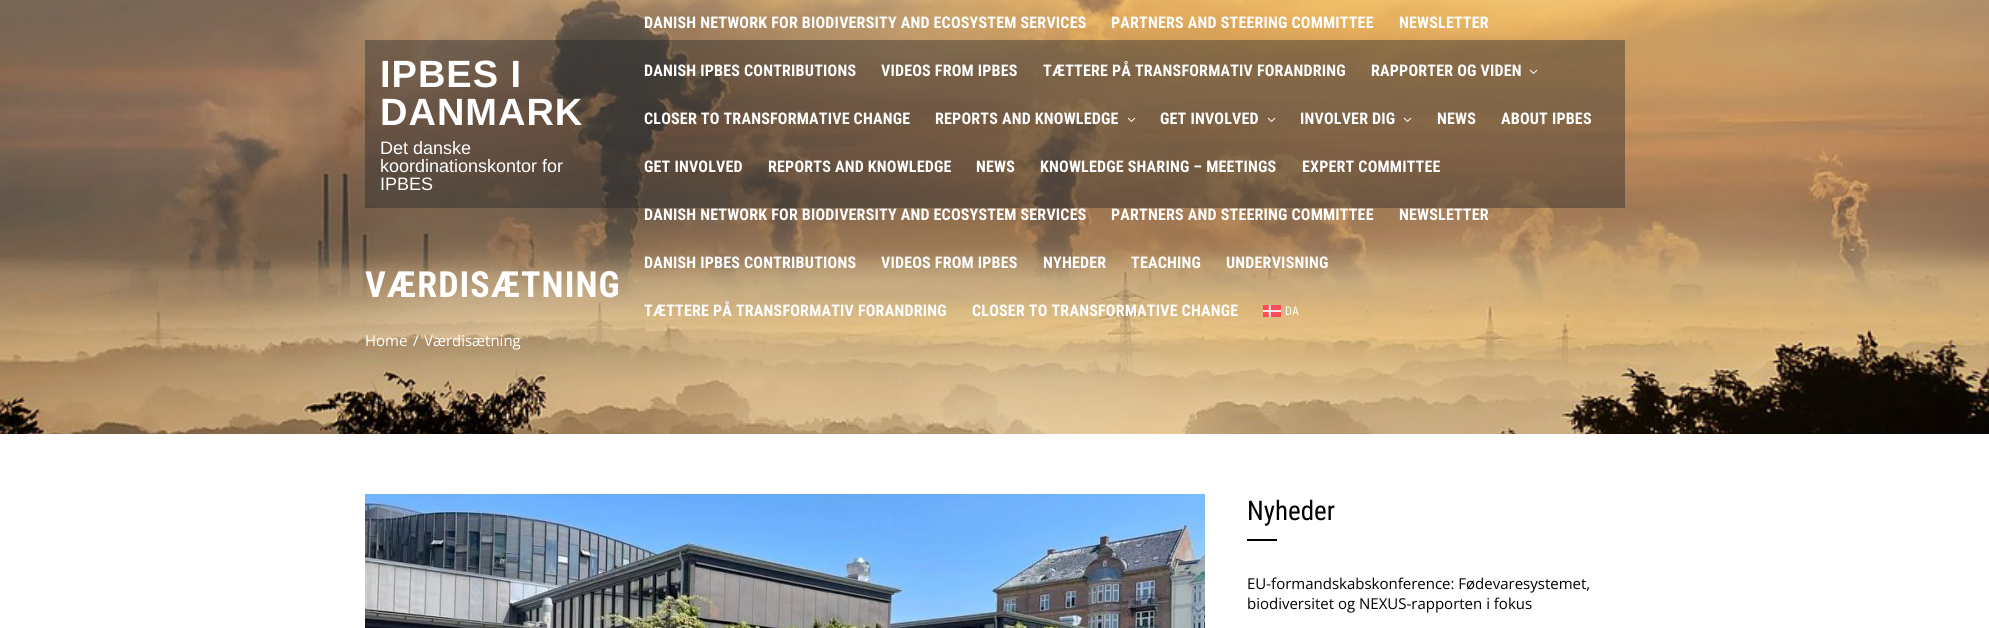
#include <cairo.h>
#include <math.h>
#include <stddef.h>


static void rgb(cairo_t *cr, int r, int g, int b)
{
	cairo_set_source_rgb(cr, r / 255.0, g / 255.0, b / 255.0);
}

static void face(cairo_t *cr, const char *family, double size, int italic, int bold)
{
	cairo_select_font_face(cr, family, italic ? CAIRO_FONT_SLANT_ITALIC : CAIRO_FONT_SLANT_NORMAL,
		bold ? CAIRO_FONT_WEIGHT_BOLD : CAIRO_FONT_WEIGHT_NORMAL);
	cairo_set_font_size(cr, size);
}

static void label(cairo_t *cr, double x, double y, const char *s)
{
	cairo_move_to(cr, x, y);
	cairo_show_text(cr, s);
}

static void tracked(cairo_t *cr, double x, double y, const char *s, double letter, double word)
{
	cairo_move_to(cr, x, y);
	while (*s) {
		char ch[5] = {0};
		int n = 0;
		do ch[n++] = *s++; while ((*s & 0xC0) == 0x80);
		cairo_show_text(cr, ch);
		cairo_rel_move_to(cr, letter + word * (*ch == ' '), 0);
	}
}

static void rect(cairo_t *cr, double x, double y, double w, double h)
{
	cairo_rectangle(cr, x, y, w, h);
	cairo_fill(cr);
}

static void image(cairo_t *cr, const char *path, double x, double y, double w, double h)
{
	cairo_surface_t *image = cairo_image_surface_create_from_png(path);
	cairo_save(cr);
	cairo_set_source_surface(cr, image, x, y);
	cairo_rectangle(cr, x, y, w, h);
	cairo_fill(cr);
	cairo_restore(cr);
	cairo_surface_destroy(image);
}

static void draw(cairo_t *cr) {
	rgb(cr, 255, 255, 255);
	cairo_paint(cr);
	image(cr, "image5.png", 0, 0, 1989, 434);
	cairo_set_source_rgba(cr, 0.118, 0.141, 0.165, 0.4);
	rect(cr, 365, 40, 1260, 168);
	cairo_set_source_rgba(cr, 0, 0, 0, 0.05);
	rect(cr, 598, 40, 1, 168);
	face(cr, "Liberation Sans", 38, 0, 1);
	rgb(cr, 255, 255, 255);
	tracked(cr, 380, 87, "IPBES I", 1, 0);
	tracked(cr, 380, 125, "DANMARK", 1, 0);
	face(cr, "Liberation Sans", 18, 0, 0);
	label(cr, 380, 154, "Det danske");
	label(cr, 380, 172, "koordinationskontor for");
	label(cr, 380, 190, "IPBES");
	face(cr, "Roboto Condensed", 16, 0, 1);
	tracked(cr, 644, 28, "DANISH NETWORK FOR BIODIVERSITY AND ECOSYSTEM SERVICES", 0.2, 0);
	tracked(cr, 1111, 28, "PARTNERS AND STEERING COMMITTEE", 0.2, 0);
	tracked(cr, 1399, 28, "NEWSLETTER", 0.2, 0);
	tracked(cr, 644, 76, "DANISH IPBES CONTRIBUTIONS", 0.2, 0);
	tracked(cr, 881, 76, "VIDEOS FROM IPBES", 0.2, 0);
	tracked(cr, 1043, 76, "TÆTTERE PÅ TRANSFORMATIV FORANDRING", 0.2, 0);
	tracked(cr, 1371, 76, "RAPPORTER OG VIDEN", 0.2, 0);
	image(cr, "image0.png", 1529, 69, 9, 5);
	tracked(cr, 644, 124, "CLOSER TO TRANSFORMATIVE CHANGE", 0.2, 0);
	tracked(cr, 935, 124, "REPORTS AND KNOWLEDGE", 0.2, 0);
	image(cr, "image1.png", 1127, 117, 9, 5);
	tracked(cr, 1160, 124, "GET INVOLVED", 0.2, 0);
	image(cr, "image2.png", 1267, 117, 9, 5);
	tracked(cr, 1300, 124, "INVOLVER DIG", 0.2, 0);
	image(cr, "image3.png", 1403, 117, 9, 5);
	tracked(cr, 1437, 124, "NEWS", 0.2, 0);
	tracked(cr, 1501, 124, "ABOUT IPBES", 0.2, 0);
	tracked(cr, 644, 172, "GET INVOLVED", 0.2, 0);
	tracked(cr, 768, 172, "REPORTS AND KNOWLEDGE", 0.2, 0);
	tracked(cr, 976, 172, "NEWS", 0.2, 0);
	tracked(cr, 1040, 172, "KNOWLEDGE SHARING – MEETINGS", 0.2, 0);
	tracked(cr, 1302, 172, "EXPERT COMMITTEE", 0.2, 0);
	tracked(cr, 644, 220, "DANISH NETWORK FOR BIODIVERSITY AND ECOSYSTEM SERVICES", 0.2, 0);
	tracked(cr, 1111, 220, "PARTNERS AND STEERING COMMITTEE", 0.2, 0);
	tracked(cr, 1399, 220, "NEWSLETTER", 0.2, 0);
	tracked(cr, 644, 268, "DANISH IPBES CONTRIBUTIONS", 0.2, 0);
	tracked(cr, 881, 268, "VIDEOS FROM IPBES", 0.2, 0);
	tracked(cr, 1043, 268, "NYHEDER", 0.2, 0);
	tracked(cr, 1131, 268, "TEACHING", 0.2, 0);
	tracked(cr, 1226, 268, "UNDERVISNING", 0.2, 0);
	tracked(cr, 644, 316, "TÆTTERE PÅ TRANSFORMATIV FORANDRING", 0.2, 0);
	tracked(cr, 972, 316, "CLOSER TO TRANSFORMATIVE CHANGE", 0.2, 0);
	image(cr, "image4.png", 1263, 305, 18, 12);
	face(cr, "Roboto Condensed", 12, 0, 0);
	tracked(cr, 1285, 315, "DA", 0.2, 0);
	face(cr, "Roboto Condensed", 36, 0, 1);
	tracked(cr, 365, 297, "VÆRDISÆTNING", 1, 0);
	face(cr, "Open Sans", 15, 0, 0);
	label(cr, 365, 346, "Home");
	label(cr, 413, 346, "/");
	label(cr, 424, 346, "Værdisætning");
	image(cr, "image6.png", 365, 494, 840, 134);
	face(cr, "Roboto Condensed", 27, 0, 0);
	rgb(cr, 0, 0, 0);
	label(cr, 1247, 520, "Nyheder");
	rect(cr, 1247, 539, 30, 2);
	face(cr, "Open Sans", 15, 0, 0);
	label(cr, 1247, 589, "EU-formandskabskonference: Fødevaresystemet,");
	label(cr, 1247, 609, "biodiversitet og NEXUS-rapporten i fokus");
}

int main(void) {
	cairo_surface_t *surface = cairo_image_surface_create(CAIRO_FORMAT_RGB24, 1989, 628);
	cairo_t *cr = cairo_create(surface);
	cairo_font_options_t *options = cairo_font_options_create();
	cairo_font_options_set_hint_metrics(options, CAIRO_HINT_METRICS_OFF);
	cairo_font_options_set_hint_style(options, CAIRO_HINT_STYLE_NONE);
	cairo_set_font_options(cr, options);
	cairo_set_miter_limit(cr, 4);
	draw(cr);
	cairo_surface_write_to_png(surface, "render.png");
	cairo_font_options_destroy(options);
	cairo_destroy(cr);
	cairo_surface_destroy(surface);
	return 0;
}
